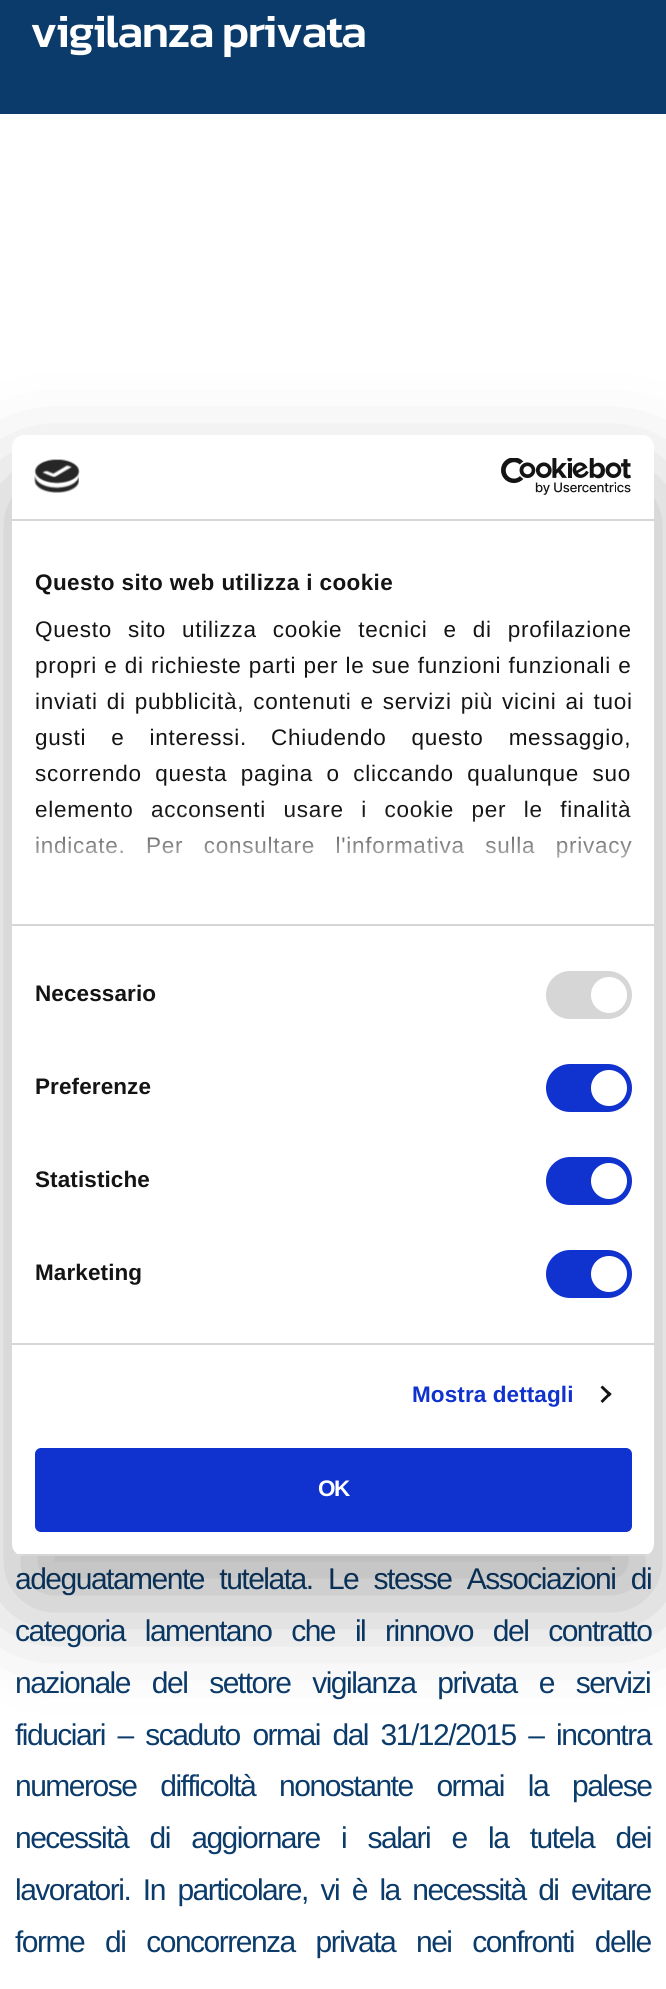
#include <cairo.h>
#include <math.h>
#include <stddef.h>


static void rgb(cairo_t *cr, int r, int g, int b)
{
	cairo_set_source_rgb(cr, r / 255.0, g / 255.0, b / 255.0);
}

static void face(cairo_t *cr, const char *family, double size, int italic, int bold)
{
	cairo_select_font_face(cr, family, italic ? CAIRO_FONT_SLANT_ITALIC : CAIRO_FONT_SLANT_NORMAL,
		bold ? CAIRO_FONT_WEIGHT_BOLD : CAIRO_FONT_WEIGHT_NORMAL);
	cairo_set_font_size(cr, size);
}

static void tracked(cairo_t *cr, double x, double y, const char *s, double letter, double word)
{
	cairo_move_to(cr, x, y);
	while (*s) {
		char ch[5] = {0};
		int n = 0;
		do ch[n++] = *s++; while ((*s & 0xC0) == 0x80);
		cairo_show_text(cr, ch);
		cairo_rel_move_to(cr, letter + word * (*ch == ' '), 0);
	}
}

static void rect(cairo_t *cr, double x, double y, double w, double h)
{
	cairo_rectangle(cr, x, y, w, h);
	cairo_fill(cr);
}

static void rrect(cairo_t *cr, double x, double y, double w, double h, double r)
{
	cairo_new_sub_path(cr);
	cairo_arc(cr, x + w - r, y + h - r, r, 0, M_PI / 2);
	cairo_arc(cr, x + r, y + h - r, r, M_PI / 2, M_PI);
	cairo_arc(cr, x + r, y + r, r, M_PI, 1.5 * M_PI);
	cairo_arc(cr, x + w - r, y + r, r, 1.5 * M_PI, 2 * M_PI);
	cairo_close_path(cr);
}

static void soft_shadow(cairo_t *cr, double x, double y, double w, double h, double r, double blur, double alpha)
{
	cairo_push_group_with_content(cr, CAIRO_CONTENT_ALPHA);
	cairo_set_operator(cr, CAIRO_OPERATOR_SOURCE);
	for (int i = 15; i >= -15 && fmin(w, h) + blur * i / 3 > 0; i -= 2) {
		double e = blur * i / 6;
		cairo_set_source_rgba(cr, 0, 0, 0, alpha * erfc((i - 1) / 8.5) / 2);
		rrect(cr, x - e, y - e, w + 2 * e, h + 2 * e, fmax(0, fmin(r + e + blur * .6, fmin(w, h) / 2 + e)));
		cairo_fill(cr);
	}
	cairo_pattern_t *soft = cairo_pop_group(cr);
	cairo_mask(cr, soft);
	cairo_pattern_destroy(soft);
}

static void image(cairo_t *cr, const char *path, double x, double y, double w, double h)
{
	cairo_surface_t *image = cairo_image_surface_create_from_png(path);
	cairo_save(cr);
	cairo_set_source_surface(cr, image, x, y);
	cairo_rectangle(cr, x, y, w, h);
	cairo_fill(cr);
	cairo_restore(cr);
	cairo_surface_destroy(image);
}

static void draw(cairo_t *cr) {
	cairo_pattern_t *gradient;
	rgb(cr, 255, 255, 255);
	cairo_paint(cr);
	rgb(cr, 11, 59, 106);
	rect(cr, 0, 0, 666, 114);
	face(cr, "Kanit Medium", 46.5, 0, 0);
	rgb(cr, 255, 255, 255);
	tracked(cr, 30, 47, "vigilanza privata", -1.5, 0);
	face(cr, "Liberation Sans", 30, 0, 0);
	rgb(cr, 11, 59, 106);
	tracked(cr, 15, 1589, "adeguatamente tutelata. Le stesse Associazioni di", -1.5, 8.5);
	tracked(cr, 15, 1641, "categoria lamentano che il rinnovo del contratto", -1.5, 13);
	tracked(cr, 15, 1693, "nazionale del settore vigilanza privata e servizi", -1.5, 15);
	tracked(cr, 15, 1745, "fiduciari – scaduto ormai dal 31/12/2015 – incontra", -1.5, 5.75);
	tracked(cr, 15, 1796, "numerose difficoltà nonostante ormai la palese", -1.5, 17);
	tracked(cr, 15, 1848, "necessità di aggiornare i salari e la tutela dei", -1.5, 14.5);
	tracked(cr, 15, 1900, "lavoratori. In particolare, vi è la necessità di evitare", -1.5, 5.75);
	tracked(cr, 15, 1952, "forme di concorrenza privata nei confronti delle", -1.5, 14);
	rgb(cr, 0, 0, 0);
	soft_shadow(cr, 12, 483, 642, 1121, 12, 51, 0.3);
	rgb(cr, 255, 255, 255);
	rrect(cr, 12, 435, 642, 1121, 12);
	cairo_fill(cr);
	rgb(cr, 214, 214, 214);
	rect(cr, 12, 519, 642, 2);
	image(cr, "image0.png", 34, 459, 46, 34);
	image(cr, "image1.png", 501, 458, 130, 37);
	rect(cr, 12, 924, 642, 2);
	face(cr, "Liberation Sans", 22.5, 0, 1);
	rgb(cr, 20, 20, 20);
	tracked(cr, 35, 590, "Questo sito web utilizza i cookie", 0.4, 0);
	face(cr, "Liberation Sans", 22.5, 0, 0);
	tracked(cr, 35, 637, "Questo sito utilizza cookie tecnici e di profilazione", 0.75, 9);
	tracked(cr, 35, 673, "propri e di richieste parti per le sue funzioni funzionali e", 0.75, 0.25);
	tracked(cr, 35, 709, "inviati di pubblicità, contenuti e servizi più vicini ai tuoi", 0.75, 2);
	tracked(cr, 35, 745, "gusti e interessi.", 0.75, 18);
	tracked(cr, 271, 745, "Chiudendo questo messaggio,", 0.75, 18);
	tracked(cr, 35, 781, "scorrendo questa pagina o cliccando qualunque suo", 0.75, 6.5);
	tracked(cr, 35, 817, "elemento acconsenti usare i cookie per le finalità", 0.75, 10.5);
	tracked(cr, 35, 853, "indicate.", 0.75, 0);
	tracked(cr, 146, 853, "Per consultare l'informativa sulla privacy", 0.75, 13.5);
	gradient = cairo_pattern_create_linear(323, 923, 323, 811);
	cairo_pattern_add_color_stop_rgba(gradient, 0, 1, 1, 1, 1);
	cairo_pattern_add_color_stop_rgba(gradient, 0.5, 1, 1, 1, 0.8);
	cairo_pattern_add_color_stop_rgba(gradient, 1, 1, 1, 1, 0);
	cairo_set_source(cr, gradient);
	cairo_pattern_destroy(gradient);
	rect(cr, 36, 813, 595, 45);
	rgb(cr, 214, 214, 214);
	rect(cr, 12, 1343, 642, 2);
	face(cr, "Liberation Sans", 22.5, 0, 1);
	rgb(cr, 20, 20, 20);
	tracked(cr, 35, 1001, "Necessario", 0.1, 0);
	rgb(cr, 214, 214, 214);
	rrect(cr, 546, 971, 86, 48, 24);
	cairo_fill(cr);
	rgb(cr, 255, 255, 255);
	cairo_arc(cr, 609, 995, 18, 0, 2 * M_PI);
	cairo_fill(cr);
	rgb(cr, 20, 20, 20);
	tracked(cr, 35, 1094, "Preferenze", 0.1, 0);
	rgb(cr, 16, 50, 207);
	rrect(cr, 546, 1064, 86, 48, 24);
	cairo_fill(cr);
	rgb(cr, 255, 255, 255);
	cairo_arc(cr, 609, 1088, 18, 0, 2 * M_PI);
	cairo_fill(cr);
	rgb(cr, 20, 20, 20);
	tracked(cr, 35, 1187, "Statistiche", 0.1, 0);
	rgb(cr, 16, 50, 207);
	rrect(cr, 546, 1157, 86, 48, 24);
	cairo_fill(cr);
	rgb(cr, 255, 255, 255);
	cairo_arc(cr, 609, 1181, 18, 0, 2 * M_PI);
	cairo_fill(cr);
	rgb(cr, 20, 20, 20);
	tracked(cr, 35, 1280, "Marketing", 0.1, 0);
	rgb(cr, 16, 50, 207);
	rrect(cr, 546, 1250, 86, 48, 24);
	cairo_fill(cr);
	rgb(cr, 255, 255, 255);
	cairo_arc(cr, 609, 1274, 18, 0, 2 * M_PI);
	cairo_fill(cr);
	rgb(cr, 16, 50, 207);
	tracked(cr, 412, 1402, "Mostra dettagli", 0.1, 0);
	rgb(cr, 20, 20, 20);
	cairo_new_path(cr);
	cairo_move_to(cr, 602.5, 1385.5);
	cairo_line_to(cr, 611.5, 1394);
	cairo_line_to(cr, 609.5, 1396.5);
	cairo_line_to(cr, 600.5, 1387.5);
	cairo_close_path(cr);
	cairo_fill(cr);
	cairo_new_path(cr);
	cairo_move_to(cr, 609.5, 1392);
	cairo_line_to(cr, 611.5, 1394);
	cairo_line_to(cr, 602.5, 1403);
	cairo_line_to(cr, 600.5, 1401);
	cairo_close_path(cr);
	cairo_fill(cr);
	cairo_save(cr);
	rrect(cr, 12, 435, 642, 1121, 12);
	cairo_clip(cr);
	rgb(cr, 214, 214, 214);
	rect(cr, 12, 1554, 642, 2);
	cairo_restore(cr);
	rgb(cr, 16, 50, 207);
	rrect(cr, 36.5, 1449.5, 594, 81, 4.5);
	cairo_fill_preserve(cr);
	cairo_set_line_width(cr, 3);
	cairo_stroke(cr);
	rgb(cr, 255, 255, 255);
	tracked(cr, 318, 1496, "OK", -1.5, 0);
}

int main(void) {
	cairo_surface_t *surface = cairo_image_surface_create(CAIRO_FORMAT_RGB24, 666, 1989);
	cairo_t *cr = cairo_create(surface);
	cairo_font_options_t *options = cairo_font_options_create();
	cairo_font_options_set_hint_metrics(options, CAIRO_HINT_METRICS_OFF);
	cairo_font_options_set_hint_style(options, CAIRO_HINT_STYLE_NONE);
	cairo_set_font_options(cr, options);
	cairo_set_miter_limit(cr, 4);
	draw(cr);
	cairo_surface_write_to_png(surface, "render.png");
	cairo_font_options_destroy(options);
	cairo_destroy(cr);
	cairo_surface_destroy(surface);
	return 0;
}
